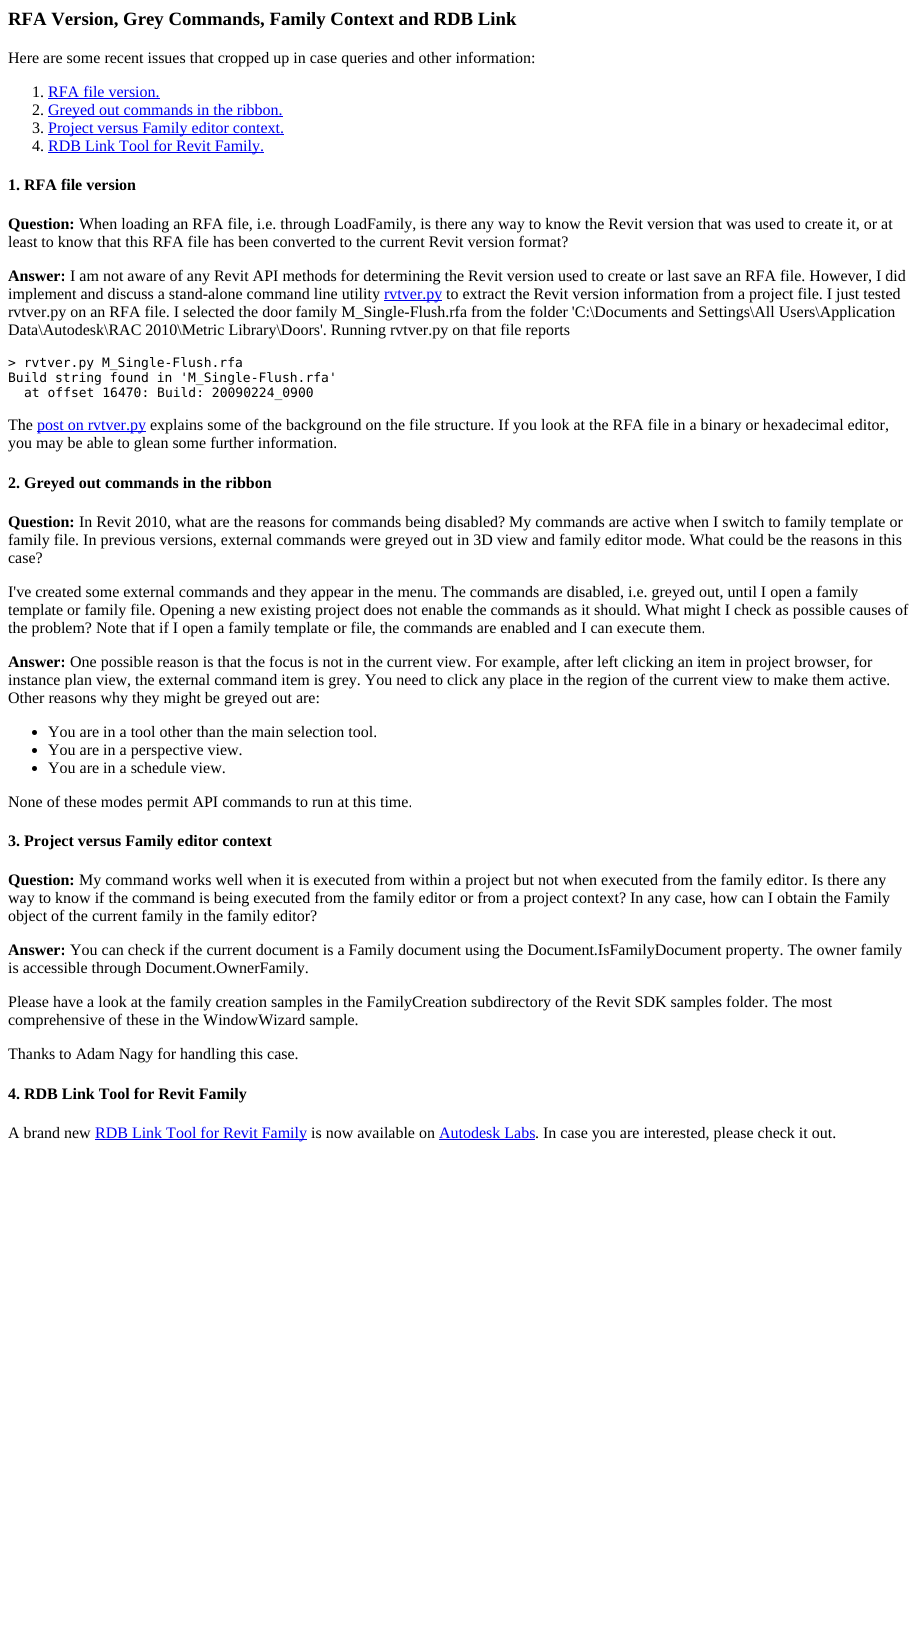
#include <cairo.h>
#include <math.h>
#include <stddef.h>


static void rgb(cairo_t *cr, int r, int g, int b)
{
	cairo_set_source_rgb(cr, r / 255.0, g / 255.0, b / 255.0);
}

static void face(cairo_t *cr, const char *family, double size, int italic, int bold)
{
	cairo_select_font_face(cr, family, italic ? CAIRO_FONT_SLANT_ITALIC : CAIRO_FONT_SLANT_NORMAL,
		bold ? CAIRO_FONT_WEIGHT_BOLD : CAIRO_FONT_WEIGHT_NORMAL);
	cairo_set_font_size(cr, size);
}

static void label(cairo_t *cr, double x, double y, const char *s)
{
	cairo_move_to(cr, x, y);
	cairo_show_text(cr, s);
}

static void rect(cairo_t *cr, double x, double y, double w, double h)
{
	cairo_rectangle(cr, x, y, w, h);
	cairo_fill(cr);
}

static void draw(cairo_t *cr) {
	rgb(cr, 255, 255, 255);
	cairo_paint(cr);
	face(cr, "Liberation Serif", 18.75, 0, 1);
	rgb(cr, 0, 0, 0);
	label(cr, 8, 25, "RFA Version, Grey Commands, Family Context and RDB Link");
	face(cr, "Liberation Serif", 16, 0, 0);
	label(cr, 8, 63, "Here are some recent issues that cropped up in case queries and other information:");
	label(cr, 32, 97, "1.");
	rgb(cr, 0, 0, 238);
	label(cr, 48, 97, "RFA file version.");
	rect(cr, 48, 98, 112, 1);
	rgb(cr, 0, 0, 0);
	label(cr, 32, 115, "2.");
	rgb(cr, 0, 0, 238);
	rect(cr, 48, 116, 235, 1);
	label(cr, 48, 115, "Greyed out commands in the ribbon.");
	rgb(cr, 0, 0, 0);
	label(cr, 32, 133, "3.");
	rgb(cr, 0, 0, 238);
	rect(cr, 48, 134, 236, 1);
	label(cr, 48, 133, "Project versus Family editor context.");
	rgb(cr, 0, 0, 0);
	label(cr, 32, 151, "4.");
	rgb(cr, 0, 0, 238);
	rect(cr, 48, 152, 216, 1);
	label(cr, 48, 151, "RDB Link Tool for Revit Family.");
	face(cr, "Liberation Serif", 16, 0, 1);
	rgb(cr, 0, 0, 0);
	label(cr, 8, 190, "1. RFA file version");
	label(cr, 8, 229, "Question:");
	face(cr, "Liberation Serif", 16, 0, 0);
	label(cr, 79, 229, "When loading an RFA file, i.e. through LoadFamily, is there any way to know the Revit version that was used to create it, or at");
	label(cr, 8, 247, "least to know that this RFA file has been converted to the current Revit version format?");
	face(cr, "Liberation Serif", 16, 0, 1);
	label(cr, 8, 281, "Answer:");
	face(cr, "Liberation Serif", 16, 0, 0);
	label(cr, 70, 281, "I am not aware of any Revit API methods for determining the Revit version used to create or last save an RFA file. However, I did");
	label(cr, 8, 299, "implement and discuss a stand-alone command line utility");
	rgb(cr, 0, 0, 238);
	rect(cr, 384, 300, 58, 1);
	label(cr, 384, 299, "rvtver.py");
	rgb(cr, 0, 0, 0);
	label(cr, 446, 299, "to extract the Revit version information from a project file. I just tested");
	label(cr, 8, 317, "rvtver.py on an RFA file. I selected the door family M_Single-Flush.rfa from the folder 'C:\\Documents and Settings\\All Users\\Application");
	label(cr, 8, 335, "Data\\Autodesk\\RAC 2010\\Metric Library\\Doors'. Running rvtver.py on that file reports");
	face(cr, "DejaVu Sans Mono", 13, 0, 0);
	label(cr, 8, 367, "> rvtver.py M_Single-Flush.rfa");
	label(cr, 8, 382, "Build string found in 'M_Single-Flush.rfa'");
	label(cr, 24, 397, "at offset 16470: Build: 20090224_0900");
	face(cr, "Liberation Serif", 16, 0, 0);
	label(cr, 8, 430, "The");
	rgb(cr, 0, 0, 238);
	rect(cr, 37, 431, 109, 1);
	label(cr, 37, 430, "post on rvtver.py");
	rgb(cr, 0, 0, 0);
	label(cr, 150, 430, "explains some of the background on the file structure. If you look at the RFA file in a binary or hexadecimal editor,");
	label(cr, 8, 448, "you may be able to glean some further information.");
	face(cr, "Liberation Serif", 16, 0, 1);
	label(cr, 8, 488, "2. Greyed out commands in the ribbon");
	label(cr, 8, 527, "Question:");
	face(cr, "Liberation Serif", 16, 0, 0);
	label(cr, 79, 527, "In Revit 2010, what are the reasons for commands being disabled? My commands are active when I switch to family template or");
	label(cr, 8, 545, "family file. In previous versions, external commands were greyed out in 3D view and family editor mode. What could be the reasons in this");
	label(cr, 8, 563, "case?");
	label(cr, 8, 597, "I've created some external commands and they appear in the menu. The commands are disabled, i.e. greyed out, until I open a family");
	label(cr, 8, 615, "template or family file. Opening a new existing project does not enable the commands as it should. What might I check as possible causes of");
	label(cr, 8, 633, "the problem? Note that if I open a family template or file, the commands are enabled and I can execute them.");
	face(cr, "Liberation Serif", 16, 0, 1);
	label(cr, 8, 667, "Answer:");
	face(cr, "Liberation Serif", 16, 0, 0);
	label(cr, 70, 667, "One possible reason is that the focus is not in the current view. For example, after left clicking an item in project browser, for");
	label(cr, 8, 685, "instance plan view, the external command item is grey. You need to click any place in the region of the current view to make them active.");
	label(cr, 8, 703, "Other reasons why they might be greyed out are:");
	cairo_new_path(cr);
	cairo_arc(cr, 34.5, 732.5, 2.5, 0, 2 * M_PI);
	cairo_fill(cr);
	label(cr, 48, 737, "You are in a tool other than the main selection tool.");
	cairo_new_path(cr);
	cairo_arc(cr, 34.5, 750.5, 2.5, 0, 2 * M_PI);
	cairo_fill(cr);
	label(cr, 48, 755, "You are in a perspective view.");
	cairo_new_path(cr);
	cairo_arc(cr, 34.5, 768.5, 2.5, 0, 2 * M_PI);
	cairo_fill(cr);
	label(cr, 48, 773, "You are in a schedule view.");
	label(cr, 8, 807, "None of these modes permit API commands to run at this time.");
	face(cr, "Liberation Serif", 16, 0, 1);
	label(cr, 8, 846, "3. Project versus Family editor context");
	label(cr, 8, 885, "Question:");
	face(cr, "Liberation Serif", 16, 0, 0);
	label(cr, 79, 885, "My command works well when it is executed from within a project but not when executed from the family editor. Is there any");
	label(cr, 8, 903, "way to know if the command is being executed from the family editor or from a project context? In any case, how can I obtain the Family");
	label(cr, 8, 921, "object of the current family in the family editor?");
	face(cr, "Liberation Serif", 16, 0, 1);
	label(cr, 8, 955, "Answer:");
	face(cr, "Liberation Serif", 16, 0, 0);
	label(cr, 70, 955, "You can check if the current document is a Family document using the Document.IsFamilyDocument property. The owner family");
	label(cr, 8, 973, "is accessible through Document.OwnerFamily.");
	label(cr, 8, 1007, "Please have a look at the family creation samples in the FamilyCreation subdirectory of the Revit SDK samples folder. The most");
	label(cr, 8, 1025, "comprehensive of these in the WindowWizard sample.");
	label(cr, 8, 1059, "Thanks to Adam Nagy for handling this case.");
	face(cr, "Liberation Serif", 16, 0, 1);
	label(cr, 8, 1099, "4. RDB Link Tool for Revit Family");
	face(cr, "Liberation Serif", 16, 0, 0);
	label(cr, 8, 1138, "A brand new");
	rgb(cr, 0, 0, 238);
	rect(cr, 95, 1139, 212, 1);
	label(cr, 95, 1138, "RDB Link Tool for Revit Family");
	rgb(cr, 0, 0, 0);
	label(cr, 311, 1138, "is now available on");
	rgb(cr, 0, 0, 238);
	label(cr, 439, 1138, "Autodesk Labs");
	rect(cr, 439, 1139, 96, 1);
	rgb(cr, 0, 0, 0);
	label(cr, 535, 1138, ". In case you are interested, please check it out.");
}

int main(void) {
	cairo_surface_t *surface = cairo_image_surface_create(CAIRO_FORMAT_RGB24, 922, 1627);
	cairo_t *cr = cairo_create(surface);
	cairo_font_options_t *options = cairo_font_options_create();
	cairo_font_options_set_hint_metrics(options, CAIRO_HINT_METRICS_OFF);
	cairo_font_options_set_hint_style(options, CAIRO_HINT_STYLE_NONE);
	cairo_set_font_options(cr, options);
	cairo_set_miter_limit(cr, 4);
	draw(cr);
	cairo_surface_write_to_png(surface, "render.png");
	cairo_font_options_destroy(options);
	cairo_destroy(cr);
	cairo_surface_destroy(surface);
	return 0;
}
